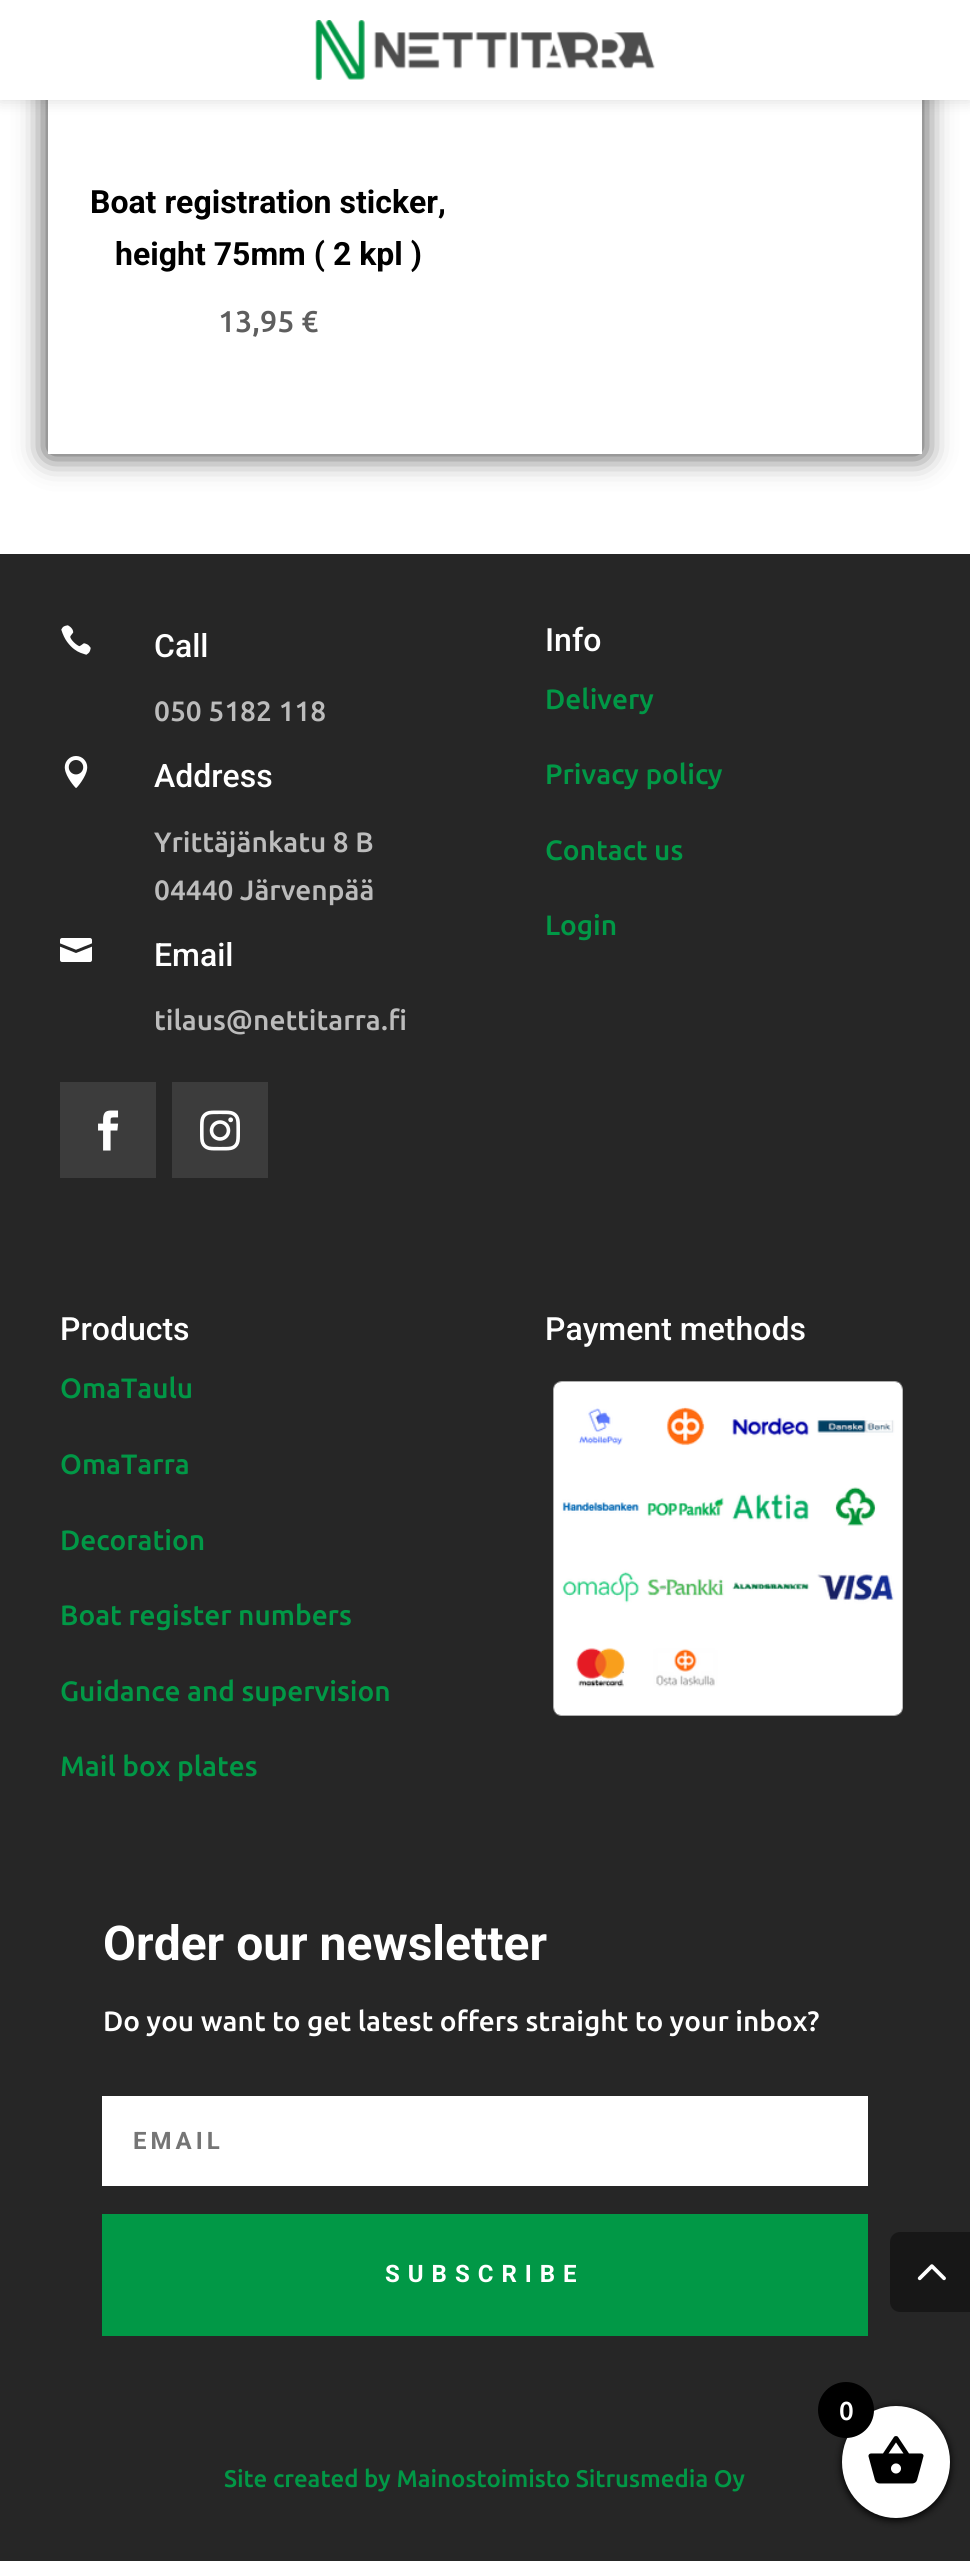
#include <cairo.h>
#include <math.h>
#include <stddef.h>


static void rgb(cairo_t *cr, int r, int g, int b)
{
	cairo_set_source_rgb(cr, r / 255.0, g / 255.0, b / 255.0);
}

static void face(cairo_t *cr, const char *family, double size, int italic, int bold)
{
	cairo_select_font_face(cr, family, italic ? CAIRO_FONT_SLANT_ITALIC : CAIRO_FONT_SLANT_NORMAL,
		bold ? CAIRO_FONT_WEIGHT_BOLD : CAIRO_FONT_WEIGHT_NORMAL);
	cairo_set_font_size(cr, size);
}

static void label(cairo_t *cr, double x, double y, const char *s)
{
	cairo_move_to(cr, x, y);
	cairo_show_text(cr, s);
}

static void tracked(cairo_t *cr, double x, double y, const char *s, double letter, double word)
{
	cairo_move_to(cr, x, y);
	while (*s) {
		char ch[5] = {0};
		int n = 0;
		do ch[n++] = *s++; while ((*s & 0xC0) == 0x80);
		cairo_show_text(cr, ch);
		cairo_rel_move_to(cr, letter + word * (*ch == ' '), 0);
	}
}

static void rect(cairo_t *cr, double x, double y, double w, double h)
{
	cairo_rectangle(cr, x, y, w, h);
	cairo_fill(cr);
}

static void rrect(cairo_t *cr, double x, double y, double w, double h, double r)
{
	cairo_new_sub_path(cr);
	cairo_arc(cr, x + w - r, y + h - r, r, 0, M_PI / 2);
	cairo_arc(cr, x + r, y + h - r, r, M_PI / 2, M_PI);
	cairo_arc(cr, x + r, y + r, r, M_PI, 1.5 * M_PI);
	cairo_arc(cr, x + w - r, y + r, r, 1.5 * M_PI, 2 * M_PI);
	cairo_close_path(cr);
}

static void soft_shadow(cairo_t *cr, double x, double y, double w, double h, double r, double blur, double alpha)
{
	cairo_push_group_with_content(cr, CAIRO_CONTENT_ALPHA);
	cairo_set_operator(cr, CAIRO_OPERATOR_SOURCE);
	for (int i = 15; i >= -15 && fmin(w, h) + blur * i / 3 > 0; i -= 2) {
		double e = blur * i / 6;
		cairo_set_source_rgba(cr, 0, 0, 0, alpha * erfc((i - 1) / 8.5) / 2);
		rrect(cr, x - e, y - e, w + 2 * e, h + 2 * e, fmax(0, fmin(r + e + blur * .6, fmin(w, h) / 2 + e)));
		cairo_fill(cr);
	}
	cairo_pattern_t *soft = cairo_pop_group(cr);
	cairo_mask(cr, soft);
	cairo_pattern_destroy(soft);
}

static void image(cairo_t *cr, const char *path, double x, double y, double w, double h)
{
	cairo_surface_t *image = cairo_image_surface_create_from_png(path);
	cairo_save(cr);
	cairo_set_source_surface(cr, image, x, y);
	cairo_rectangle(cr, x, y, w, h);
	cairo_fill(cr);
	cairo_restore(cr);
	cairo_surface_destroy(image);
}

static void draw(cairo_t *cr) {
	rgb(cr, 255, 255, 255);
	cairo_paint(cr);
	rgb(cr, 0, 0, 0);
	soft_shadow(cr, 0, 0, 970, 100, 0, 8, 0.15);
	cairo_save(cr);
	cairo_set_fill_rule(cr, CAIRO_FILL_RULE_EVEN_ODD);
	cairo_new_path(cr);
	cairo_move_to(cr, 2, 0);
	cairo_line_to(cr, 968, 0);
	cairo_line_to(cr, 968, 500);
	cairo_line_to(cr, 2, 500);
	cairo_close_path(cr);
	cairo_move_to(cr, 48, -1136);
	cairo_line_to(cr, 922, -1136);
	cairo_line_to(cr, 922, 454);
	cairo_line_to(cr, 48, 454);
	cairo_close_path(cr);
	cairo_clip(cr);
	soft_shadow(cr, 48, -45, 874, 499, 0, 15, 0.8);
	cairo_restore(cr);
	rgb(cr, 255, 255, 255);
	rect(cr, 0, 0, 970, 100);
	image(cr, "image0.png", 315, 20, 340, 60);
	face(cr, "Roboto", 32, 0, 1);
	rgb(cr, 0, 0, 0);
	label(cr, 90, 213, "Boat registration sticker,");
	label(cr, 115, 265, "height 75mm ( 2 kpl )");
	face(cr, "Ubuntu Medium", 30, 0, 0);
	rgb(cr, 94, 94, 94);
	label(cr, 218, 332, "13,95 €");
	rgb(cr, 38, 38, 38);
	rect(cr, 0, 554, 970, 2007);
	image(cr, "image1.png", 61, 625, 30, 30);
	face(cr, "Roboto Medium", 32, 0, 0);
	rgb(cr, 255, 255, 255);
	label(cr, 154, 657, "Call");
	face(cr, "Ubuntu Medium", 28, 0, 0);
	rgb(cr, 188, 188, 188);
	label(cr, 154, 721, "050 5182 118");
	image(cr, "image2.png", 64, 756, 24, 32);
	face(cr, "Roboto Medium", 32, 0, 0);
	rgb(cr, 255, 255, 255);
	label(cr, 154, 787, "Address");
	face(cr, "Ubuntu Medium", 28, 0, 0);
	rgb(cr, 188, 188, 188);
	label(cr, 154, 852, "Yrittäjänkatu 8 B");
	label(cr, 154, 900, "04440 Järvenpää");
	image(cr, "image3.png", 60, 938, 32, 24);
	face(cr, "Roboto Medium", 32, 0, 0);
	rgb(cr, 255, 255, 255);
	label(cr, 154, 966, "Email");
	face(cr, "Ubuntu Medium", 28, 0, 0);
	rgb(cr, 188, 188, 188);
	label(cr, 154, 1030, "tilaus@nettitarra.fi");
	rgb(cr, 60, 60, 60);
	rect(cr, 60, 1082, 96, 96);
	image(cr, "image4.png", 98, 1110, 21, 41);
	rect(cr, 172, 1082, 96, 96);
	image(cr, "image5.png", 200, 1110, 40, 41);
	face(cr, "Roboto Medium", 32, 0, 0);
	rgb(cr, 255, 255, 255);
	label(cr, 545, 651, "Info");
	face(cr, "Ubuntu Medium", 28, 0, 0);
	rgb(cr, 1, 152, 70);
	label(cr, 545, 709, "Delivery");
	label(cr, 545, 784, "Privacy policy");
	label(cr, 545, 860, "Contact us");
	label(cr, 545, 935, "Login");
	face(cr, "Roboto Medium", 32, 0, 0);
	rgb(cr, 255, 255, 255);
	label(cr, 60, 1340, "Products");
	face(cr, "Ubuntu Medium", 28, 0, 0);
	rgb(cr, 1, 152, 70);
	label(cr, 60, 1398, "OmaTaulu");
	label(cr, 60, 1474, "OmaTarra");
	label(cr, 60, 1550, "Decoration");
	label(cr, 60, 1625, "Boat register numbers");
	label(cr, 60, 1701, "Guidance and supervision");
	label(cr, 60, 1776, "Mail box plates");
	face(cr, "Roboto Medium", 32, 0, 0);
	rgb(cr, 255, 255, 255);
	label(cr, 545, 1340, "Payment methods");
	image(cr, "image6.png", 553, 1381, 350, 335);
	face(cr, "Roboto", 48, 0, 1);
	label(cr, 103, 1960, "Order our newsletter");
	face(cr, "Ubuntu Medium", 28, 0, 0);
	label(cr, 103, 2031, "Do you want to get latest offers straight to your inbox?");
	rect(cr, 102, 2096, 766, 90);
	face(cr, "Roboto", 24, 0, 1);
	rgb(cr, 117, 117, 117);
	tracked(cr, 133, 2149, "EMAIL", 4, 0);
	rgb(cr, 1, 152, 70);
	rect(cr, 102, 2214, 766, 122);
	rgb(cr, 255, 255, 255);
	tracked(cr, 385, 2282, "SUBSCRIBE", 8, 0);
	face(cr, "Ubuntu Medium", 24, 0, 0);
	rgb(cr, 1, 152, 70);
	label(cr, 224, 2487, "Site created by Mainostoimisto Sitrusmedia Oy");
	rgb(cr, 23, 23, 23);
	cairo_new_path(cr);
	cairo_move_to(cr, 900, 2232);
	cairo_line_to(cr, 970, 2232);
	cairo_line_to(cr, 970, 2312);
	cairo_line_to(cr, 900, 2312);
	cairo_curve_to(cr, 894.5, 2312, 890, 2307.5, 890, 2302);
	cairo_line_to(cr, 890, 2242);
	cairo_curve_to(cr, 890, 2236.5, 894.5, 2232, 900, 2232);
	cairo_close_path(cr);
	cairo_fill(cr);
	image(cr, "image7.png", 917, 2264, 29, 17);
	rgb(cr, 0, 0, 0);
	soft_shadow(cr, 842, 2408, 108, 112, 54, 4, 1);
	rgb(cr, 255, 255, 255);
	cairo_new_path(cr);
	cairo_move_to(cr, 896, 2406);
	cairo_curve_to(cr, 926, 2406, 950, 2431, 950, 2462);
	cairo_curve_to(cr, 950, 2493, 926, 2518, 896, 2518);
	cairo_curve_to(cr, 866, 2518, 842, 2493, 842, 2462);
	cairo_curve_to(cr, 842, 2431, 866, 2406, 896, 2406);
	cairo_close_path(cr);
	cairo_fill(cr);
	rgb(cr, 0, 0, 0);
	cairo_arc(cr, 846, 2410, 28, 0, 2 * M_PI);
	cairo_fill(cr);
	face(cr, "Ubuntu Medium", 26, 0, 0);
	rgb(cr, 255, 255, 255);
	label(cr, 839, 2420, "0");
	image(cr, "image8.png", 868, 2436, 56, 48);
}

int main(void) {
	cairo_surface_t *surface = cairo_image_surface_create(CAIRO_FORMAT_RGB24, 970, 2561);
	cairo_t *cr = cairo_create(surface);
	cairo_font_options_t *options = cairo_font_options_create();
	cairo_font_options_set_hint_metrics(options, CAIRO_HINT_METRICS_OFF);
	cairo_font_options_set_hint_style(options, CAIRO_HINT_STYLE_NONE);
	cairo_set_font_options(cr, options);
	cairo_set_miter_limit(cr, 4);
	draw(cr);
	cairo_surface_write_to_png(surface, "render.png");
	cairo_font_options_destroy(options);
	cairo_destroy(cr);
	cairo_surface_destroy(surface);
	return 0;
}
